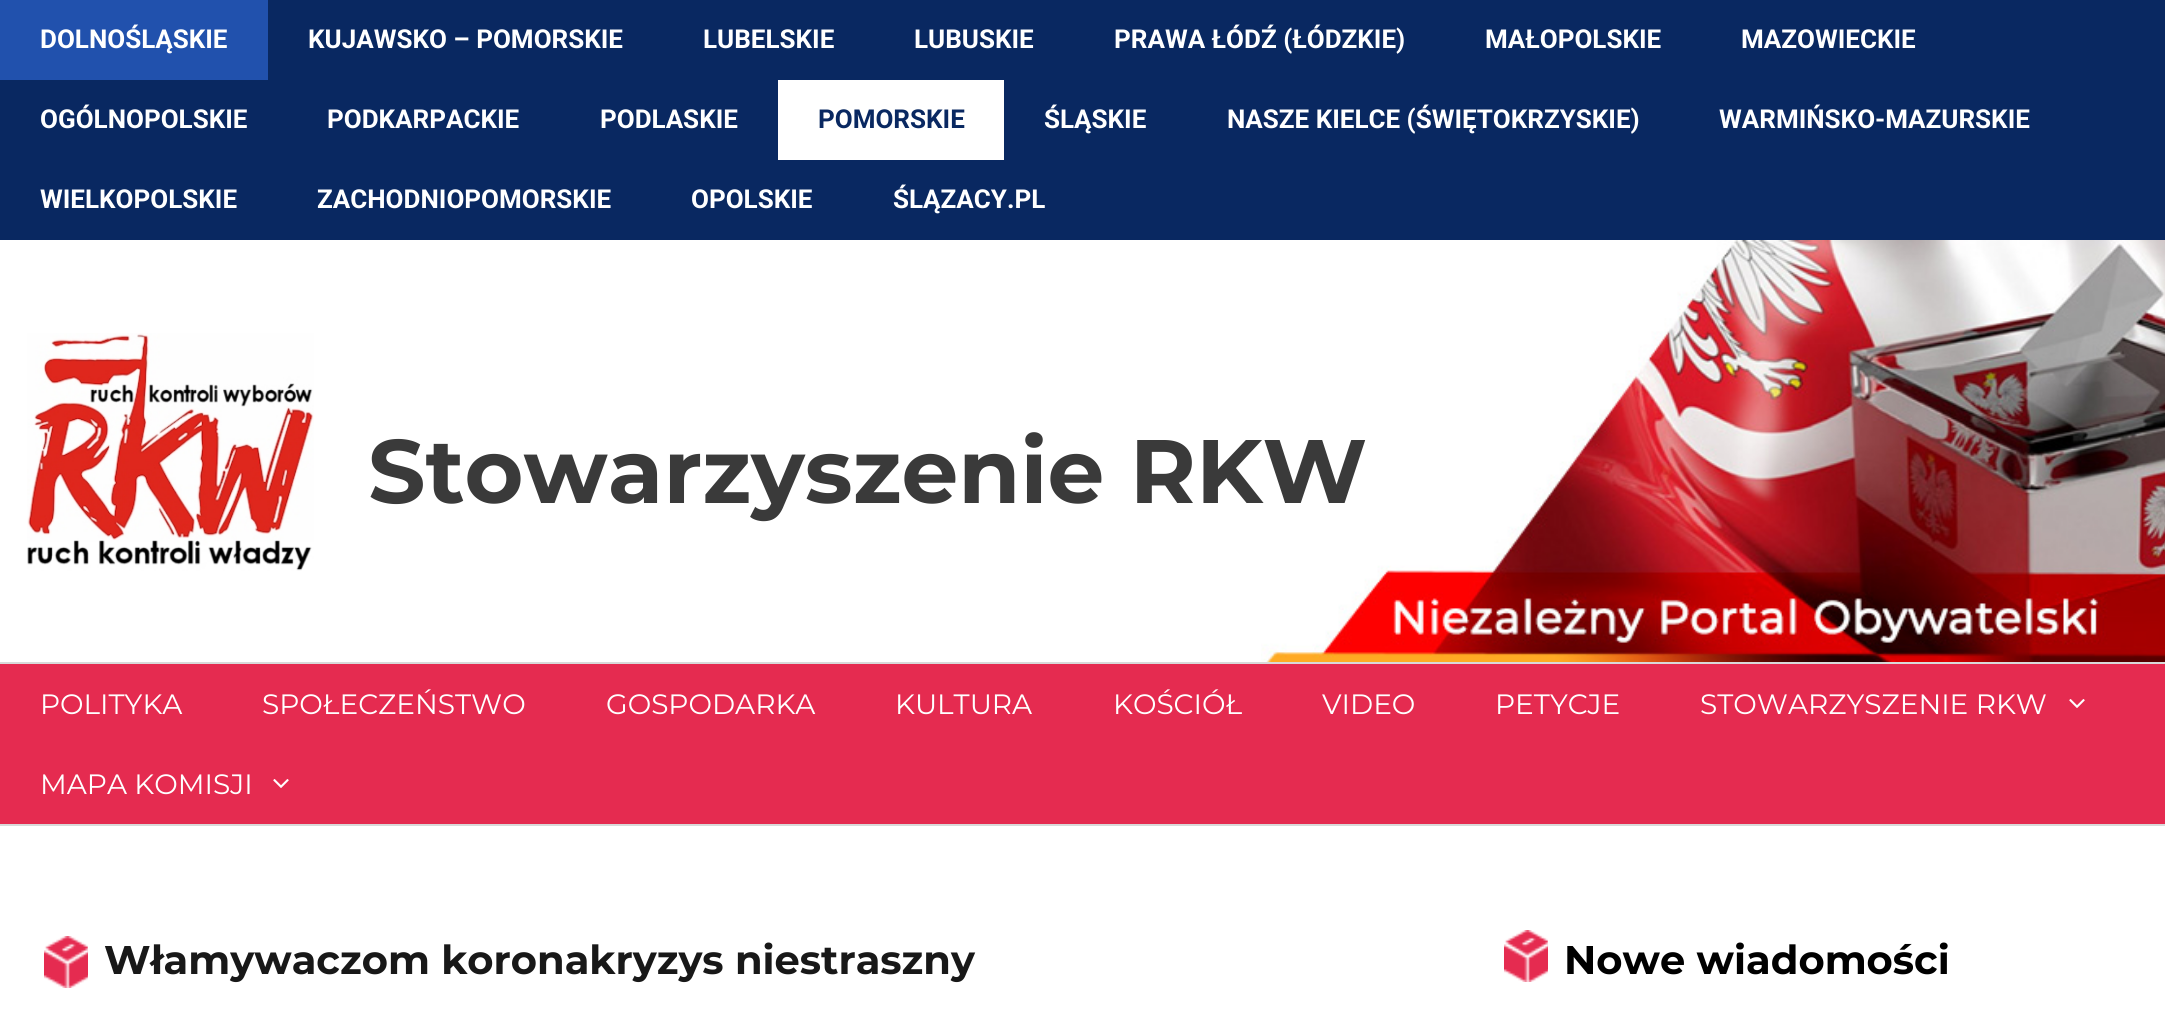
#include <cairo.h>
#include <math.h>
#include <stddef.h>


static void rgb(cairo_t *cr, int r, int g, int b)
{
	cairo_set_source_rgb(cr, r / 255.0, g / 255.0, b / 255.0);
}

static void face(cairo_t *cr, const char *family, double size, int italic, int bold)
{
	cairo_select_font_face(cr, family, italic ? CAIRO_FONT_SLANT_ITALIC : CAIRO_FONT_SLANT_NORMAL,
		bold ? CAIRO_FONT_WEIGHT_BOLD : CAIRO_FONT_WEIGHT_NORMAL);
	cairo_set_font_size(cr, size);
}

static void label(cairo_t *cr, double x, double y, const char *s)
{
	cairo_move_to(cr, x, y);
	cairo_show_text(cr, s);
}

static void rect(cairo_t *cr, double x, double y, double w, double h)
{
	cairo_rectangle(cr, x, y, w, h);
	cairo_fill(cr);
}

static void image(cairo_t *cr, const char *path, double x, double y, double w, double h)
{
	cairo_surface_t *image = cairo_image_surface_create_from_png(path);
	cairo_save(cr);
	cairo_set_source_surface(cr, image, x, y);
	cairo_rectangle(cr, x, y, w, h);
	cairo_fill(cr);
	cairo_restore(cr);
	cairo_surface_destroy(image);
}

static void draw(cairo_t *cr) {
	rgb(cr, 255, 255, 255);
	cairo_paint(cr);
	rgb(cr, 9, 40, 97);
	rect(cr, 0, 0, 2165, 240);
	rgb(cr, 33, 81, 173);
	rect(cr, 0, 0, 268, 80);
	face(cr, "Roboto", 26, 0, 1);
	rgb(cr, 255, 255, 255);
	label(cr, 40, 48, "DOLNOŚLĄSKIE");
	label(cr, 308, 48, "KUJAWSKO – POMORSKIE");
	label(cr, 703, 48, "LUBELSKIE");
	label(cr, 914, 48, "LUBUSKIE");
	label(cr, 1114, 48, "PRAWA ŁÓDŹ (ŁÓDZKIE)");
	label(cr, 1485, 48, "MAŁOPOLSKIE");
	label(cr, 1741, 48, "MAZOWIECKIE");
	label(cr, 40, 128, "OGÓLNOPOLSKIE");
	label(cr, 327, 128, "PODKARPACKIE");
	label(cr, 600, 128, "PODLASKIE");
	rect(cr, 778, 80, 226, 80);
	rgb(cr, 9, 40, 97);
	label(cr, 818, 128, "POMORSKIE");
	rgb(cr, 255, 255, 255);
	label(cr, 1044, 128, "ŚLĄSKIE");
	label(cr, 1227, 128, "NASZE KIELCE (ŚWIĘTOKRZYSKIE)");
	label(cr, 1719, 128, "WARMIŃSKO-MAZURSKIE");
	label(cr, 40, 208, "WIELKOPOLSKIE");
	label(cr, 317, 208, "ZACHODNIOPOMORSKIE");
	label(cr, 691, 208, "OPOLSKIE");
	label(cr, 893, 208, "ŚLĄZACY.PL");
	image(cr, "image0.png", 1261, 240, 904, 422);
	image(cr, "image1.png", 27, 333, 287, 238);
	face(cr, "Montserrat", 90, 0, 1);
	rgb(cr, 58, 58, 58);
	label(cr, 368, 503, "Stowarzyszenie RKW");
	rgb(cr, 229, 43, 80);
	rect(cr, 0, 664, 2165, 160);
	rgb(cr, 217, 217, 217);
	rect(cr, 0, 662, 2165, 2);
	rect(cr, 0, 824, 2165, 2);
	face(cr, "Montserrat", 28, 0, 0);
	rgb(cr, 255, 255, 255);
	label(cr, 40, 714, "POLITYKA");
	label(cr, 262, 714, "SPOŁECZEŃSTWO");
	label(cr, 606, 714, "GOSPODARKA");
	label(cr, 895, 714, "KULTURA");
	label(cr, 1113, 714, "KOŚCIÓŁ");
	label(cr, 1322, 714, "VIDEO");
	label(cr, 1495, 714, "PETYCJE");
	label(cr, 1700, 714, "STOWARZYSZENIE RKW");
	image(cr, "image2.png", 2069, 699, 16, 9);
	label(cr, 40, 794, "MAPA KOMISJI");
	image(cr, "image2.png", 273, 779, 16, 9);
	image(cr, "image3.png", 44, 936, 44, 52);
	face(cr, "Montserrat", 40, 0, 1);
	rgb(cr, 24, 24, 24);
	label(cr, 104, 974, "Włamywaczom koronakryzys niestraszny");
	image(cr, "image3.png", 1504, 930, 44, 52);
	rgb(cr, 0, 0, 0);
	label(cr, 1564, 974, "Nowe wiadomości");
}

int main(void) {
	cairo_surface_t *surface = cairo_image_surface_create(CAIRO_FORMAT_RGB24, 2165, 1013);
	cairo_t *cr = cairo_create(surface);
	cairo_font_options_t *options = cairo_font_options_create();
	cairo_font_options_set_hint_metrics(options, CAIRO_HINT_METRICS_OFF);
	cairo_font_options_set_hint_style(options, CAIRO_HINT_STYLE_NONE);
	cairo_set_font_options(cr, options);
	cairo_set_miter_limit(cr, 4);
	draw(cr);
	cairo_surface_write_to_png(surface, "render.png");
	cairo_font_options_destroy(options);
	cairo_destroy(cr);
	cairo_surface_destroy(surface);
	return 0;
}
